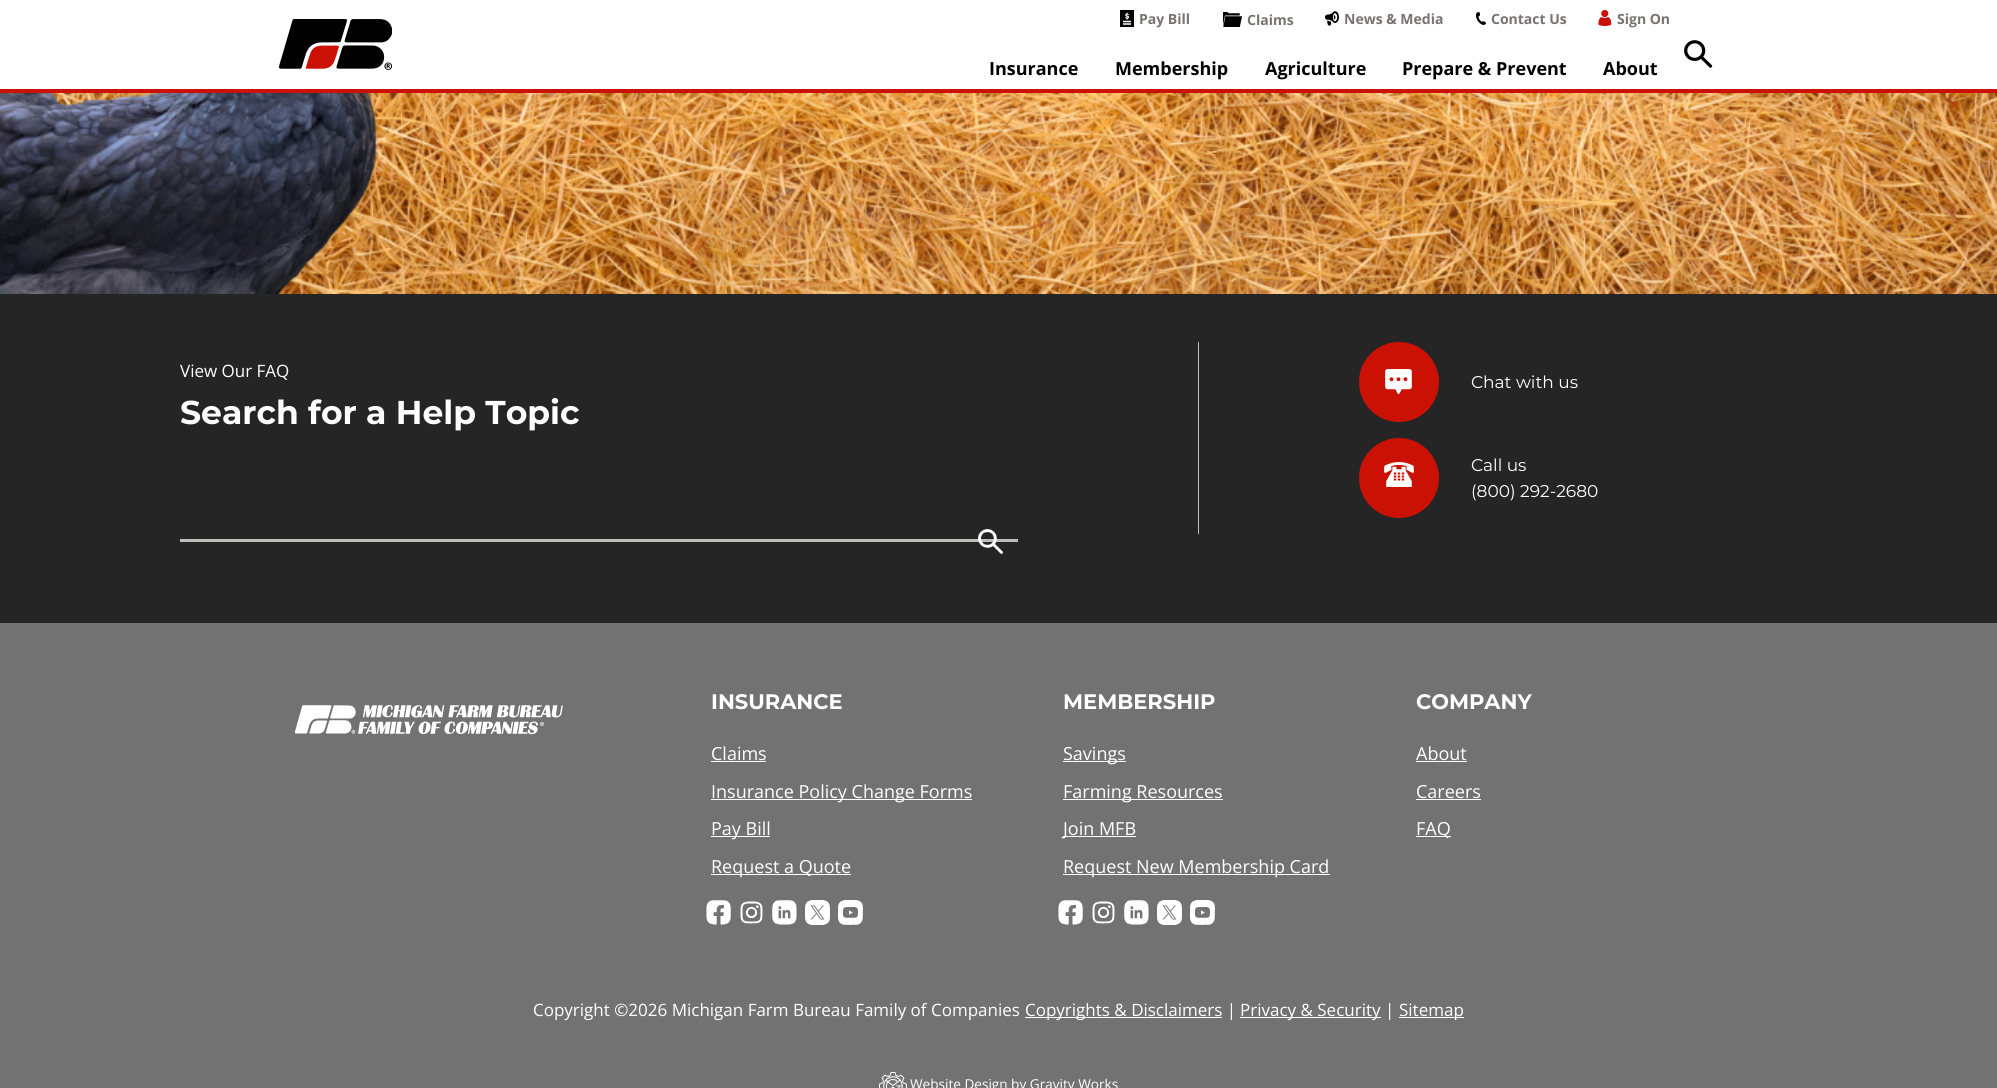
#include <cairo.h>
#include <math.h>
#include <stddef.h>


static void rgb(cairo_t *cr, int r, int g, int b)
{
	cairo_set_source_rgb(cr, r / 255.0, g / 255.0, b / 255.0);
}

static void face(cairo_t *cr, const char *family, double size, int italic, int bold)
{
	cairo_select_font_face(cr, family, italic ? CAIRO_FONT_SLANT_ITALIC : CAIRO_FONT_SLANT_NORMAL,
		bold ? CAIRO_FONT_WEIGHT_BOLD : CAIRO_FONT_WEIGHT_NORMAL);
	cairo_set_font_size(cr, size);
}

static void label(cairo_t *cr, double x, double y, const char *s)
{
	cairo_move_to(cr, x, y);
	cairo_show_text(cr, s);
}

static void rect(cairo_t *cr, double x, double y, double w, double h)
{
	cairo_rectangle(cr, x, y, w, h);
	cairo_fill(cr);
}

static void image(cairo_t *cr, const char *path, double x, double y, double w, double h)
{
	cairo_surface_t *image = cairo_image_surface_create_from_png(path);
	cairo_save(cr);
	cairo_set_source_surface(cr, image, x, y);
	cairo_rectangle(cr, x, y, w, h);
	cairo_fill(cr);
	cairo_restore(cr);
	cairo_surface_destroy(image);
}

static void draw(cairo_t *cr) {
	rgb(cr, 114, 114, 114);
	cairo_paint(cr);
	rgb(cr, 255, 255, 255);
	rect(cr, 0, 0, 1997, 89);
	rgb(cr, 203, 17, 4);
	rect(cr, 0, 89, 1997, 4);
	image(cr, "image0.png", 279, 19, 113, 51);
	image(cr, "image1.png", 1120, 10, 14, 17);
	face(cr, "Open Sans", 14, 0, 1);
	rgb(cr, 121, 114, 114);
	label(cr, 1139, 24, "Pay Bill");
	image(cr, "image2.png", 1223, 12, 19, 15);
	label(cr, 1247, 25, "Claims");
	image(cr, "image3.png", 1325, 11, 14, 15);
	label(cr, 1344, 24, "News & Media");
	image(cr, "image4.png", 1476, 12, 10, 13);
	label(cr, 1491, 24, "Contact Us");
	image(cr, "image5.png", 1598, 10, 14, 16);
	label(cr, 1617, 24, "Sign On");
	image(cr, "image6.png", 1684, 40, 29, 28);
	face(cr, "Open Sans", 18, 0, 1);
	rgb(cr, 0, 0, 0);
	label(cr, 989, 75, "Insurance");
	label(cr, 1115, 75, "Membership");
	label(cr, 1265, 75, "Agriculture");
	label(cr, 1402, 75, "Prepare & Prevent");
	label(cr, 1603, 75, "About");
	image(cr, "image7.png", 0, 93, 1997, 201);
	rgb(cr, 37, 37, 37);
	rect(cr, 0, 294, 1997, 329);
	face(cr, "Open Sans", 17, 0, 0);
	rgb(cr, 255, 255, 255);
	label(cr, 180, 377, "View Our FAQ");
	face(cr, "Montserrat", 33, 0, 1);
	label(cr, 180, 424, "Search for a Help Topic");
	rgb(cr, 194, 190, 190);
	rect(cr, 180, 539, 838, 3);
	image(cr, "image8.png", 978, 529, 25, 25);
	rect(cr, 1198, 342, 1, 192);
	rgb(cr, 203, 17, 4);
	cairo_arc(cr, 1399, 382, 40, 0, 2 * M_PI);
	cairo_fill(cr);
	image(cr, "image9.png", 1385, 369, 27, 25);
	face(cr, "Montserrat", 17, 0, 0);
	rgb(cr, 255, 255, 255);
	label(cr, 1471, 388, "Chat with us");
	rgb(cr, 203, 17, 4);
	cairo_new_path(cr);
	cairo_arc(cr, 1399, 478, 40, 0, 2 * M_PI);
	cairo_fill(cr);
	image(cr, "image10.png", 1384, 462, 30, 25);
	rgb(cr, 255, 255, 255);
	label(cr, 1471, 471, "Call us");
	label(cr, 1471, 497, "(800) 292-2680");
	image(cr, "image11.png", 295, 705, 268, 30);
	face(cr, "Montserrat", 21, 0, 1);
	label(cr, 711, 709, "INSURANCE");
	face(cr, "Open Sans", 18, 0, 0);
	label(cr, 711, 760, "Claims");
	rect(cr, 711, 761, 55, 1);
	rect(cr, 711, 799, 261, 1);
	label(cr, 711, 798, "Insurance Policy Change Forms");
	rect(cr, 711, 836, 59, 1);
	label(cr, 711, 835, "Pay Bill");
	rect(cr, 711, 874, 140, 1);
	label(cr, 711, 873, "Request a Quote");
	image(cr, "image12.png", 706, 900, 25, 25);
	image(cr, "image13.png", 740, 901, 23, 23);
	image(cr, "image14.png", 772, 900, 25, 25);
	image(cr, "image15.png", 805, 900, 25, 25);
	image(cr, "image16.png", 838, 900, 25, 25);
	face(cr, "Montserrat", 21, 0, 1);
	label(cr, 1063, 709, "MEMBERSHIP");
	rect(cr, 1063, 761, 63, 1);
	face(cr, "Open Sans", 18, 0, 0);
	label(cr, 1063, 760, "Savings");
	rect(cr, 1063, 799, 160, 1);
	label(cr, 1063, 798, "Farming Resources");
	rect(cr, 1063, 836, 73, 1);
	label(cr, 1063, 835, "Join MFB");
	rect(cr, 1063, 874, 267, 1);
	label(cr, 1063, 873, "Request New Membership Card");
	image(cr, "image12.png", 1058, 900, 25, 25);
	image(cr, "image13.png", 1092, 901, 23, 23);
	image(cr, "image14.png", 1124, 900, 25, 25);
	image(cr, "image15.png", 1157, 900, 25, 25);
	image(cr, "image16.png", 1190, 900, 25, 25);
	face(cr, "Montserrat", 21, 0, 1);
	label(cr, 1416, 709, "COMPANY");
	face(cr, "Open Sans", 18, 0, 0);
	label(cr, 1416, 760, "About");
	rect(cr, 1416, 761, 51, 1);
	label(cr, 1416, 798, "Careers");
	rect(cr, 1416, 799, 65, 1);
	rect(cr, 1416, 836, 35, 1);
	label(cr, 1416, 835, "FAQ");
	face(cr, "Open Sans", 17, 0, 0);
	label(cr, 533, 1016, "Copyright ©2026 Michigan Farm Bureau Family of Companies");
	rect(cr, 1025, 1017, 197, 1);
	label(cr, 1025, 1016, "Copyrights & Disclaimers |");
	rect(cr, 1240, 1017, 141, 1);
	label(cr, 1240, 1016, "Privacy & Security |");
	rect(cr, 1399, 1017, 65, 1);
	label(cr, 1399, 1016, "Sitemap");
	image(cr, "image17.png", 879, 1072, 28, 16);
	face(cr, "Open Sans", 13.6, 0, 0);
	label(cr, 910, 1089, "Website Design by Gravity Works");
}

int main(void) {
	cairo_surface_t *surface = cairo_image_surface_create(CAIRO_FORMAT_RGB24, 1997, 1088);
	cairo_t *cr = cairo_create(surface);
	cairo_font_options_t *options = cairo_font_options_create();
	cairo_font_options_set_hint_metrics(options, CAIRO_HINT_METRICS_OFF);
	cairo_font_options_set_hint_style(options, CAIRO_HINT_STYLE_NONE);
	cairo_set_font_options(cr, options);
	cairo_set_miter_limit(cr, 4);
	draw(cr);
	cairo_surface_write_to_png(surface, "render.png");
	cairo_font_options_destroy(options);
	cairo_destroy(cr);
	cairo_surface_destroy(surface);
	return 0;
}
